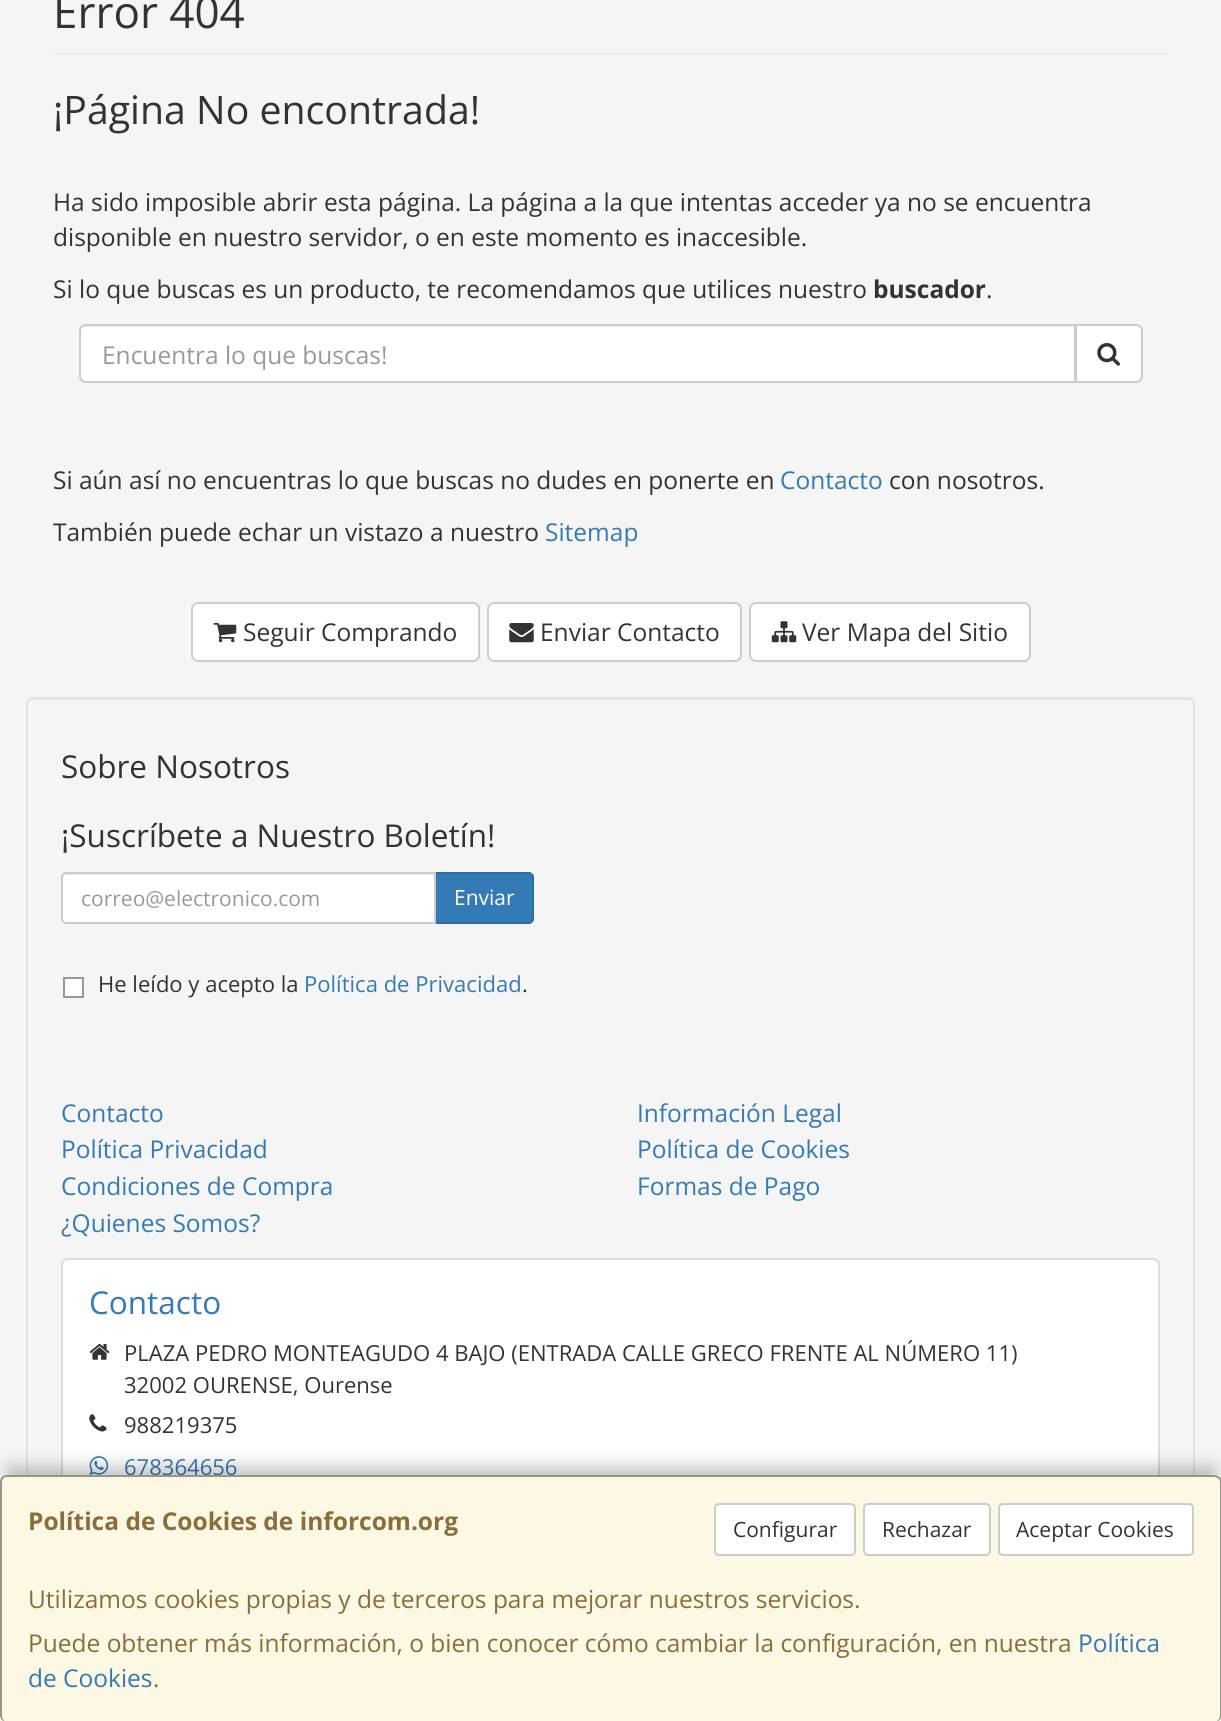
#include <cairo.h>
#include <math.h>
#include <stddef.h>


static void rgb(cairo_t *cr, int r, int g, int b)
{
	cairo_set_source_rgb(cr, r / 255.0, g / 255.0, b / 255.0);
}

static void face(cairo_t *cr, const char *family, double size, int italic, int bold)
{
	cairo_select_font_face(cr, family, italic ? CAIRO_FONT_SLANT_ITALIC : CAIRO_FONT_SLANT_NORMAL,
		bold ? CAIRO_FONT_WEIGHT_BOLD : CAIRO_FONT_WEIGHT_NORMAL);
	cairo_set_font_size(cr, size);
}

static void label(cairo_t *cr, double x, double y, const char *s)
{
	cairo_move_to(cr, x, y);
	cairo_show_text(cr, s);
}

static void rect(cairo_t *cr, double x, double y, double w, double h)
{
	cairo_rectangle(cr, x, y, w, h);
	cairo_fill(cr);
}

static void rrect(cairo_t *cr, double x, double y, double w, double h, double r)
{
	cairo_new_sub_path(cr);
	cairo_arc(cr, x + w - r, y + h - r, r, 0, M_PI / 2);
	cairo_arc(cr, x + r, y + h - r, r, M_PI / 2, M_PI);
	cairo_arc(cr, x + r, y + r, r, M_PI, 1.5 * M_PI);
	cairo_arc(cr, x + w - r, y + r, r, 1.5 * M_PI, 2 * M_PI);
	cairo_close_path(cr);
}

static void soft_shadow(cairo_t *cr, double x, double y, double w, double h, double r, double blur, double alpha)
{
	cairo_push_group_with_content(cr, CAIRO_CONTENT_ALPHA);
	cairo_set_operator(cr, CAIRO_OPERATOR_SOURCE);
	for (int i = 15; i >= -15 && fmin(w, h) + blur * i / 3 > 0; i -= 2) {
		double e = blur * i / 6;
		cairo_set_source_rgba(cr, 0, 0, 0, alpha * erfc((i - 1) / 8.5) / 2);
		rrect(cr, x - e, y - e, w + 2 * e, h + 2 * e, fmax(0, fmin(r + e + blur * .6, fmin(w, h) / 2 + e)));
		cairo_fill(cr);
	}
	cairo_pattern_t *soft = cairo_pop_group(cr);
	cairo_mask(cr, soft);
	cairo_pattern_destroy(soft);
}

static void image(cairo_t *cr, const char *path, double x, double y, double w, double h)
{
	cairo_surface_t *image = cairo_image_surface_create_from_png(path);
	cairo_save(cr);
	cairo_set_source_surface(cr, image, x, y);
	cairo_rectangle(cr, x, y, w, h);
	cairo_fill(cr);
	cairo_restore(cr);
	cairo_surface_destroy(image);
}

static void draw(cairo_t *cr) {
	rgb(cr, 245, 245, 245);
	cairo_paint(cr);
	rgb(cr, 238, 238, 238);
	rect(cr, 53, 53, 1116, 2);
	face(cr, "Open Sans", 44, 0, 0);
	rgb(cr, 51, 51, 51);
	label(cr, 53, 28, "Error 404");
	face(cr, "Open Sans", 39.25, 0, 0);
	label(cr, 53, 124, "¡Página No encontrada!");
	face(cr, "Open Sans", 24.5, 0, 0);
	label(cr, 53, 211, "Ha sido imposible abrir esta página. La página a la que intentas acceder ya no se encuentra");
	label(cr, 53, 246, "disponible en nuestro servidor, o en este momento es inaccesible.");
	label(cr, 53, 298, "Si lo que buscas es un producto, te recomendamos que utilices nuestro");
	face(cr, "Open Sans", 24.5, 0, 1);
	label(cr, 873, 298, "buscador");
	face(cr, "Open Sans", 24.5, 0, 0);
	label(cr, 986, 298, ".");
	rgb(cr, 255, 255, 255);
	cairo_new_path(cr);
	cairo_move_to(cr, 1076, 325);
	cairo_line_to(cr, 1136, 325);
	cairo_curve_to(cr, 1139.5, 325, 1142, 327.5, 1142, 331);
	cairo_line_to(cr, 1142, 376);
	cairo_curve_to(cr, 1142, 379.5, 1139.5, 382, 1136, 382);
	cairo_line_to(cr, 1076, 382);
	cairo_close_path(cr);
	cairo_fill_preserve(cr);
	rgb(cr, 204, 204, 204);
	cairo_stroke(cr);
	rgb(cr, 255, 255, 255);
	cairo_new_path(cr);
	cairo_move_to(cr, 86, 324);
	cairo_line_to(cr, 1076, 324);
	cairo_line_to(cr, 1076, 383);
	cairo_line_to(cr, 86, 383);
	cairo_curve_to(cr, 82, 383, 79, 380, 79, 376);
	cairo_line_to(cr, 79, 331);
	cairo_curve_to(cr, 79, 327, 82, 324, 86, 324);
	cairo_close_path(cr);
	cairo_fill(cr);
	rgb(cr, 236, 236, 236);
	cairo_new_path(cr);
	cairo_move_to(cr, 86, 327);
	cairo_line_to(cr, 1074, 327);
	cairo_line_to(cr, 1074, 382);
	cairo_line_to(cr, 1075, 382);
	cairo_line_to(cr, 1075, 326);
	cairo_line_to(cr, 86, 326);
	cairo_curve_to(cr, 84, 326, 82, 327, 81, 329);
	cairo_curve_to(cr, 82, 328, 84, 327, 86, 327);
	cairo_close_path(cr);
	cairo_fill(cr);
	cairo_new_path(cr);
	cairo_move_to(cr, 86, 325);
	cairo_line_to(cr, 1075, 325);
	cairo_line_to(cr, 1075, 382);
	cairo_line_to(cr, 86, 382);
	cairo_curve_to(cr, 82.5, 382, 80, 379.5, 80, 376);
	cairo_line_to(cr, 80, 331);
	cairo_curve_to(cr, 80, 327.5, 82.5, 325, 86, 325);
	cairo_close_path(cr);
	rgb(cr, 204, 204, 204);
	cairo_stroke(cr);
	rgb(cr, 153, 153, 153);
	label(cr, 102, 364, "Encuentra lo que buscas!");
	image(cr, "image0.png", 1097, 343, 23, 23);
	rgb(cr, 51, 51, 51);
	label(cr, 53, 489, "Si aún así no encuentras lo que buscas no dudes en ponerte en");
	rgb(cr, 51, 122, 183);
	label(cr, 780, 489, "Contacto");
	rgb(cr, 51, 51, 51);
	label(cr, 889, 489, "con nosotros.");
	label(cr, 53, 541, "También puede echar un vistazo a nuestro");
	rgb(cr, 51, 122, 183);
	label(cr, 545, 541, "Sitemap");
	rgb(cr, 255, 255, 255);
	rrect(cr, 192, 603, 287, 58, 6);
	cairo_fill_preserve(cr);
	rgb(cr, 204, 204, 204);
	cairo_stroke(cr);
	image(cr, "image1.png", 213, 623, 24, 20);
	rgb(cr, 51, 51, 51);
	label(cr, 243, 641, "Seguir Comprando");
	rgb(cr, 255, 255, 255);
	rrect(cr, 488, 603, 253, 58, 6);
	cairo_fill_preserve(cr);
	rgb(cr, 204, 204, 204);
	cairo_stroke(cr);
	image(cr, "image2.png", 509, 623, 25, 20);
	rgb(cr, 51, 51, 51);
	label(cr, 540, 641, "Enviar Contacto");
	rgb(cr, 255, 255, 255);
	rrect(cr, 750, 603, 280, 58, 6);
	cairo_fill_preserve(cr);
	rgb(cr, 204, 204, 204);
	cairo_stroke(cr);
	image(cr, "image3.png", 771, 621, 26, 22);
	rgb(cr, 51, 51, 51);
	label(cr, 802, 641, "Ver Mapa del Sitio");
	rgb(cr, 233, 233, 233);
	cairo_new_path(cr);
	cairo_move_to(cr, 33, 700);
	cairo_line_to(cr, 1188, 700);
	cairo_curve_to(cr, 1191, 700, 1194, 702, 1194, 705);
	cairo_line_to(cr, 1194, 703);
	cairo_curve_to(cr, 1194, 700, 1192, 698, 1189, 698);
	cairo_line_to(cr, 33, 698);
	cairo_curve_to(cr, 30, 698, 28, 700, 28, 703);
	cairo_line_to(cr, 28, 705);
	cairo_curve_to(cr, 28, 702, 30, 700, 33, 700);
	cairo_close_path(cr);
	cairo_fill(cr);
	rrect(cr, 27, 698, 1167, 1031, 6);
	rgb(cr, 227, 227, 227);
	cairo_stroke(cr);
	face(cr, "Open Sans", 31.5, 0, 0);
	rgb(cr, 51, 51, 51);
	label(cr, 61, 778, "Sobre Nosotros");
	label(cr, 61, 847, "¡Suscríbete a Nuestro Boletín!");
	rgb(cr, 51, 122, 183);
	cairo_new_path(cr);
	cairo_move_to(cr, 435, 873);
	cairo_line_to(cr, 529, 873);
	cairo_curve_to(cr, 531, 873, 533, 875, 533, 877);
	cairo_line_to(cr, 533, 919);
	cairo_curve_to(cr, 533, 921, 531, 923, 529, 923);
	cairo_line_to(cr, 435, 923);
	cairo_close_path(cr);
	cairo_fill_preserve(cr);
	rgb(cr, 46, 109, 164);
	cairo_stroke(cr);
	rgb(cr, 255, 255, 255);
	cairo_new_path(cr);
	cairo_move_to(cr, 66, 872);
	cairo_line_to(cr, 436, 872);
	cairo_line_to(cr, 436, 924);
	cairo_line_to(cr, 66, 924);
	cairo_curve_to(cr, 63, 924, 61, 922, 61, 919);
	cairo_line_to(cr, 61, 877);
	cairo_curve_to(cr, 61, 874, 63, 872, 66, 872);
	cairo_close_path(cr);
	cairo_fill(cr);
	rgb(cr, 236, 236, 236);
	cairo_new_path(cr);
	cairo_move_to(cr, 66, 875);
	cairo_line_to(cr, 434, 875);
	cairo_line_to(cr, 434, 873);
	cairo_line_to(cr, 67, 873);
	cairo_curve_to(cr, 64, 873, 63, 875, 63, 878);
	cairo_curve_to(cr, 63, 877, 65, 875, 66, 875);
	cairo_close_path(cr);
	cairo_fill(cr);
	cairo_new_path(cr);
	cairo_move_to(cr, 66, 873);
	cairo_line_to(cr, 435, 873);
	cairo_line_to(cr, 435, 923);
	cairo_line_to(cr, 66, 923);
	cairo_curve_to(cr, 64, 923, 62, 921, 62, 919);
	cairo_line_to(cr, 62, 877);
	cairo_curve_to(cr, 62, 875, 64, 873, 66, 873);
	cairo_close_path(cr);
	rgb(cr, 204, 204, 204);
	cairo_stroke(cr);
	face(cr, "Open Sans", 21, 0, 0);
	rgb(cr, 153, 153, 153);
	label(cr, 81, 906, "correo@electronico.com");
	rgb(cr, 255, 255, 255);
	label(cr, 454, 905, "Enviar");
	cairo_rectangle(cr, 64, 978, 19, 19);
	cairo_fill_preserve(cr);
	rgb(cr, 153, 153, 153);
	cairo_stroke(cr);
	face(cr, "Open Sans", 22.05, 0, 0);
	rgb(cr, 51, 51, 51);
	label(cr, 98, 992, "He leído y acepto la");
	rgb(cr, 51, 122, 183);
	label(cr, 304, 992, "Política de Privacidad");
	rgb(cr, 51, 51, 51);
	label(cr, 522, 992, ".");
	face(cr, "Open Sans", 24.5, 0, 0);
	rgb(cr, 51, 122, 183);
	label(cr, 61, 1122, "Contacto");
	label(cr, 637, 1122, "Información Legal");
	label(cr, 61, 1158, "Política Privacidad");
	label(cr, 637, 1158, "Política de Cookies");
	label(cr, 61, 1195, "Condiciones de Compra");
	label(cr, 637, 1195, "Formas de Pago");
	label(cr, 61, 1232, "¿Quienes Somos?");
	rgb(cr, 255, 255, 255);
	rrect(cr, 62, 1259, 1097, 294, 6);
	cairo_fill_preserve(cr);
	rgb(cr, 221, 221, 221);
	cairo_stroke(cr);
	face(cr, "Open Sans", 31.5, 0, 0);
	rgb(cr, 51, 122, 183);
	label(cr, 89, 1314, "Contacto");
	image(cr, "image4.png", 89, 1344, 21, 16);
	face(cr, "Open Sans", 22.05, 0, 0);
	rgb(cr, 51, 51, 51);
	label(cr, 124, 1361, "PLAZA PEDRO MONTEAGUDO 4 BAJO (ENTRADA CALLE GRECO FRENTE AL NÚMERO 11)");
	label(cr, 124, 1393, "32002 OURENSE, Ourense");
	image(cr, "image5.png", 89, 1414, 18, 18);
	label(cr, 124, 1433, "988219375");
	image(cr, "image6.png", 89, 1456, 20, 19);
	rgb(cr, 51, 122, 183);
	label(cr, 124, 1475, "678364656");
	rgb(cr, 0, 0, 0);
	soft_shadow(cr, 9, 1467, 1204, 229, 0, 9, 0.25);
	rgb(cr, 252, 248, 227);
	rrect(cr, 0, 1475, 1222, 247, 7);
	cairo_fill(cr);
	cairo_set_source_rgba(cr, 0, 0, 0, 0.4);
	cairo_set_fill_rule(cr, CAIRO_FILL_RULE_EVEN_ODD);
	cairo_new_path(cr);
	cairo_move_to(cr, 7, 1475);
	cairo_line_to(cr, 1214, 1475);
	cairo_curve_to(cr, 1218, 1475, 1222, 1478, 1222, 1482);
	cairo_line_to(cr, 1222, 1715);
	cairo_curve_to(cr, 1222, 1719, 1218, 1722, 1214, 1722);
	cairo_line_to(cr, 7, 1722);
	cairo_curve_to(cr, 3, 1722, 0, 1719, 0, 1715);
	cairo_line_to(cr, 0, 1482);
	cairo_curve_to(cr, 0, 1478, 3, 1475, 7, 1475);
	cairo_close_path(cr);
	cairo_move_to(cr, 7, 1477);
	cairo_line_to(cr, 1214, 1477);
	cairo_curve_to(cr, 1217, 1477, 1220, 1479, 1220, 1482);
	cairo_line_to(cr, 1220, 1715);
	cairo_curve_to(cr, 1220, 1719, 1217, 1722, 1214, 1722);
	cairo_line_to(cr, 7, 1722);
	cairo_curve_to(cr, 4, 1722, 2, 1719, 2, 1715);
	cairo_line_to(cr, 2, 1482);
	cairo_curve_to(cr, 2, 1479, 4, 1477, 7, 1477);
	cairo_close_path(cr);
	cairo_fill(cr);
	face(cr, "Open Sans", 24.5, 0, 1);
	rgb(cr, 138, 109, 59);
	label(cr, 28, 1530, "Política de Cookies de inforcom.org");
	rgb(cr, 255, 255, 255);
	rrect(cr, 715, 1504, 140, 51, 4);
	cairo_fill_preserve(cr);
	rgb(cr, 204, 204, 204);
	cairo_stroke(cr);
	face(cr, "Open Sans", 21, 0, 0);
	rgb(cr, 51, 51, 51);
	label(cr, 733, 1537, "Configurar");
	rgb(cr, 255, 255, 255);
	rrect(cr, 864, 1504, 126, 51, 4);
	cairo_fill_preserve(cr);
	rgb(cr, 204, 204, 204);
	cairo_stroke(cr);
	rgb(cr, 51, 51, 51);
	label(cr, 882, 1537, "Rechazar");
	rgb(cr, 255, 255, 255);
	rrect(cr, 999, 1504, 194, 51, 4);
	cairo_fill_preserve(cr);
	rgb(cr, 204, 204, 204);
	cairo_stroke(cr);
	rgb(cr, 51, 51, 51);
	label(cr, 1016, 1537, "Aceptar Cookies");
	face(cr, "Open Sans", 24.5, 0, 0);
	rgb(cr, 138, 109, 59);
	label(cr, 28, 1608, "Utilizamos cookies propias y de terceros para mejorar nuestros servicios.");
	label(cr, 28, 1652, "Puede obtener más información, o bien conocer cómo cambiar la configuración, en nuestra");
	rgb(cr, 51, 122, 183);
	label(cr, 1078, 1652, "Política");
	label(cr, 28, 1687, "de Cookies");
	rgb(cr, 138, 109, 59);
	label(cr, 153, 1687, ".");
}

int main(void) {
	cairo_surface_t *surface = cairo_image_surface_create(CAIRO_FORMAT_RGB24, 1221, 1721);
	cairo_t *cr = cairo_create(surface);
	cairo_font_options_t *options = cairo_font_options_create();
	cairo_font_options_set_hint_metrics(options, CAIRO_HINT_METRICS_OFF);
	cairo_font_options_set_hint_style(options, CAIRO_HINT_STYLE_NONE);
	cairo_set_font_options(cr, options);
	cairo_set_miter_limit(cr, 4);
	draw(cr);
	cairo_surface_write_to_png(surface, "render.png");
	cairo_font_options_destroy(options);
	cairo_destroy(cr);
	cairo_surface_destroy(surface);
	return 0;
}
